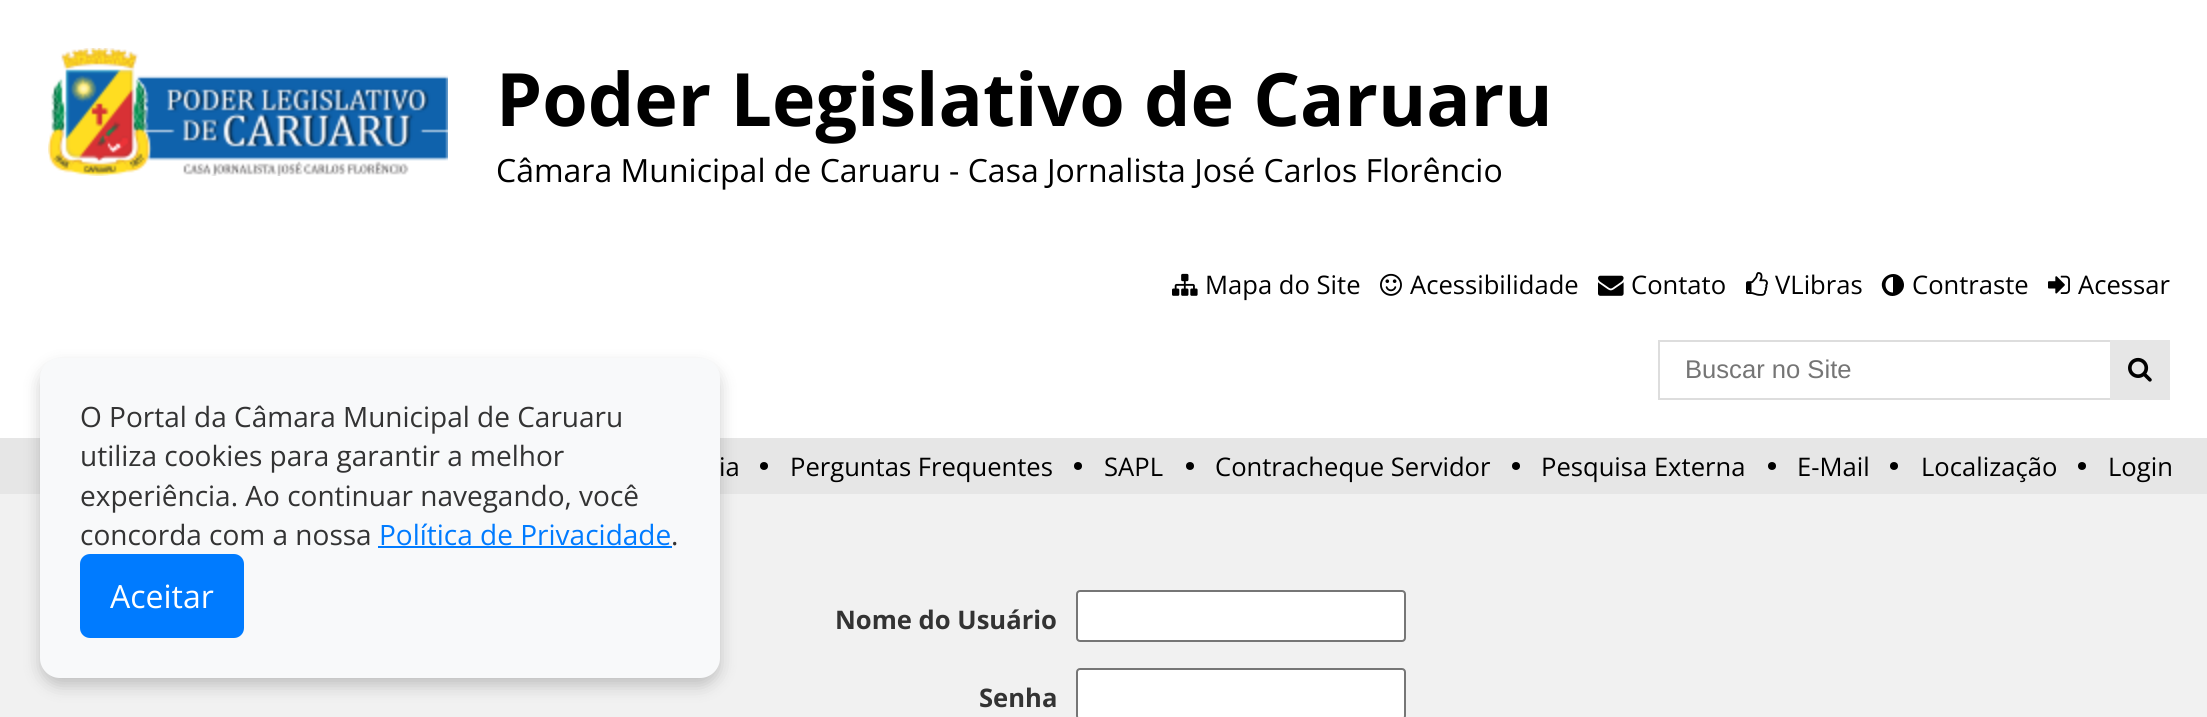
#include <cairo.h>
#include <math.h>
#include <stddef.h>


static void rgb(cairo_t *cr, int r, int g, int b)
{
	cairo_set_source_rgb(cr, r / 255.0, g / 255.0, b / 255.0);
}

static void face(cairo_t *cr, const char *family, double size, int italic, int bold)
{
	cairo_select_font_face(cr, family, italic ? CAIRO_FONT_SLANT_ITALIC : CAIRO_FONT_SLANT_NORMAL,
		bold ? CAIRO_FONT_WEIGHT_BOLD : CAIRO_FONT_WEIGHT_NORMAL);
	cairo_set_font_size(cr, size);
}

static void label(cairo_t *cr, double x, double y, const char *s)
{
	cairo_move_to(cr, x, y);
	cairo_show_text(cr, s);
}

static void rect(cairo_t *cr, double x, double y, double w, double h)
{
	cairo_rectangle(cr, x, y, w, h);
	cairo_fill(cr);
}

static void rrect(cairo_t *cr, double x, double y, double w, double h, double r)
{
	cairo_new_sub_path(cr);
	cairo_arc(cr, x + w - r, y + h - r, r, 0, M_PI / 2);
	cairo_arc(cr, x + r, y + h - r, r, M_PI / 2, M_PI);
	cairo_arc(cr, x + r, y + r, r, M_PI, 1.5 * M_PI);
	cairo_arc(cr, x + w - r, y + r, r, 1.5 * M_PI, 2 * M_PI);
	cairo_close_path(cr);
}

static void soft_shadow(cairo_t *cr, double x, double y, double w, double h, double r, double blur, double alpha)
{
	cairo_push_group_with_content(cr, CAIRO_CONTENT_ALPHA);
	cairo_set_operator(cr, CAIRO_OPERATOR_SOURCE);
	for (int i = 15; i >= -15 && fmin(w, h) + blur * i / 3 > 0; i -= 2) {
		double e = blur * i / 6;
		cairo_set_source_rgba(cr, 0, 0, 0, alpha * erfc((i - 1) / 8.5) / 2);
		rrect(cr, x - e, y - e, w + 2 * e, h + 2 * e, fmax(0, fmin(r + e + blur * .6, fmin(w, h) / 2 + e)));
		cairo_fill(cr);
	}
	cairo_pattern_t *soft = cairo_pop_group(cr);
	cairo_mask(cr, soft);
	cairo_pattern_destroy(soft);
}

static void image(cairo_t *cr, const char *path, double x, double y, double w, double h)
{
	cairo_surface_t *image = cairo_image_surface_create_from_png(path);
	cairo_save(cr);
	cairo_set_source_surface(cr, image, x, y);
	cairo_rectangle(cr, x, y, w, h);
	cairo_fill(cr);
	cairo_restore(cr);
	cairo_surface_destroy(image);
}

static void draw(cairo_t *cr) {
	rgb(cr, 241, 241, 241);
	cairo_paint(cr);
	rgb(cr, 255, 255, 255);
	rect(cr, 0, 0, 2207, 438);
	rgb(cr, 230, 230, 230);
	rect(cr, 0, 438, 2207, 56);
	rgb(cr, 0, 0, 0);
	soft_shadow(cr, 40, 366, 680, 320, 20, 8, 0.2);
	rgb(cr, 248, 249, 250);
	rrect(cr, 40, 358, 680, 320, 20);
	cairo_fill(cr);
	face(cr, "Open Sans", 28, 0, 0);
	rgb(cr, 51, 51, 51);
	label(cr, 80, 427, "O Portal da Câmara Municipal de Caruaru");
	label(cr, 80, 466, "utiliza cookies para garantir a melhor");
	label(cr, 80, 506, "experiência. Ao continuar navegando, você");
	label(cr, 80, 545, "concorda com a nossa");
	rgb(cr, 0, 123, 255);
	label(cr, 379, 545, "Política de Privacidade");
	rect(cr, 378, 546, 294, 2);
	rgb(cr, 51, 51, 51);
	label(cr, 671, 545, ".");
	rgb(cr, 0, 123, 255);
	rrect(cr, 80, 554, 164, 84, 10);
	cairo_fill(cr);
	face(cr, "Open Sans", 32, 0, 0);
	rgb(cr, 255, 255, 255);
	label(cr, 110, 608, "Aceitar");
	image(cr, "image0.png", 48, 48, 400, 128);
	face(cr, "Open Sans", 73.6, 0, 1);
	rgb(cr, 0, 0, 0);
	label(cr, 496, 126, "Poder Legislativo de Caruaru");
	face(cr, "Open Sans", 32, 0, 0);
	label(cr, 496, 182, "Câmara Municipal de Caruaru - Casa Jornalista José Carlos Florêncio");
	image(cr, "image1.png", 1172, 273, 26, 23);
	face(cr, "Open Sans", 25.6, 0, 0);
	label(cr, 1205, 294, "Mapa do Site");
	image(cr, "image2.png", 1380, 273, 22, 23);
	label(cr, 1410, 294, "Acessibilidade");
	image(cr, "image3.png", 1598, 275, 26, 21);
	label(cr, 1631, 294, "Contato");
	image(cr, "image4.png", 1746, 272, 22, 24);
	label(cr, 1775, 294, "VLibras");
	label(cr, 1912, 294, "Contraste");
	cairo_new_path(cr);
	cairo_move_to(cr, 1893, 292.5);
	cairo_line_to(cr, 1893, 277);
	cairo_curve_to(cr, 1883, 277, 1883, 292.5, 1893, 292.5);
	cairo_close_path(cr);
	cairo_move_to(cr, 1902.5, 279.5);
	cairo_curve_to(cr, 1909.5, 292, 1890.5, 303, 1883.5, 290.5);
	cairo_curve_to(cr, 1876, 278, 1895, 267, 1902.5, 279.5);
	cairo_close_path(cr);
	cairo_fill(cr);
	image(cr, "image5.png", 2048, 275, 22, 19);
	label(cr, 2078, 294, "Acessar");
	cairo_rectangle(cr, 1659, 341, 510, 58);
	rgb(cr, 221, 221, 221);
	cairo_stroke(cr);
	face(cr, "Liberation Sans", 25.6, 0, 0);
	rgb(cr, 117, 117, 117);
	label(cr, 1685, 378, "Buscar no Site");
	rgb(cr, 230, 230, 230);
	rect(cr, 2110, 340, 60, 60);
	image(cr, "image6.png", 2128, 357, 24, 25);
	face(cr, "Open Sans", 25.6, 0, 0);
	rgb(cr, 0, 0, 0);
	label(cr, 719, 476, "ia");
	cairo_new_path(cr);
	cairo_arc(cr, 764, 466, 4, 0, 2 * M_PI);
	cairo_fill(cr);
	label(cr, 790, 476, "Perguntas Frequentes");
	cairo_new_path(cr);
	cairo_arc(cr, 1078, 466, 4, 0, 2 * M_PI);
	cairo_fill(cr);
	label(cr, 1104, 476, "SAPL");
	cairo_new_path(cr);
	cairo_arc(cr, 1190, 466, 4, 0, 2 * M_PI);
	cairo_fill(cr);
	label(cr, 1215, 476, "Contracheque Servidor");
	cairo_new_path(cr);
	cairo_arc(cr, 1516, 466, 4, 0, 2 * M_PI);
	cairo_fill(cr);
	label(cr, 1541, 476, "Pesquisa Externa");
	cairo_new_path(cr);
	cairo_arc(cr, 1772, 466, 4, 0, 2 * M_PI);
	cairo_fill(cr);
	label(cr, 1797, 476, "E-Mail");
	cairo_new_path(cr);
	cairo_arc(cr, 1894, 466, 4, 0, 2 * M_PI);
	cairo_fill(cr);
	label(cr, 1921, 476, "Localização");
	cairo_new_path(cr);
	cairo_arc(cr, 2082, 466, 4, 0, 2 * M_PI);
	cairo_fill(cr);
	label(cr, 2108, 476, "Login");
	face(cr, "Open Sans", 25.6, 0, 1);
	rgb(cr, 51, 51, 51);
	label(cr, 835, 629, "Nome do Usuário");
	rgb(cr, 255, 255, 255);
	rrect(cr, 1077, 591, 328, 50, 3);
	cairo_fill_preserve(cr);
	rgb(cr, 118, 118, 118);
	cairo_stroke(cr);
	rgb(cr, 51, 51, 51);
	label(cr, 979, 707, "Senha");
	rgb(cr, 255, 255, 255);
	rrect(cr, 1077, 669, 328, 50, 3);
	cairo_fill_preserve(cr);
	rgb(cr, 118, 118, 118);
	cairo_stroke(cr);
}

int main(void) {
	cairo_surface_t *surface = cairo_image_surface_create(CAIRO_FORMAT_RGB24, 2207, 717);
	cairo_t *cr = cairo_create(surface);
	cairo_font_options_t *options = cairo_font_options_create();
	cairo_font_options_set_hint_metrics(options, CAIRO_HINT_METRICS_OFF);
	cairo_font_options_set_hint_style(options, CAIRO_HINT_STYLE_NONE);
	cairo_set_font_options(cr, options);
	cairo_set_miter_limit(cr, 4);
	draw(cr);
	cairo_surface_write_to_png(surface, "render.png");
	cairo_font_options_destroy(options);
	cairo_destroy(cr);
	cairo_surface_destroy(surface);
	return 0;
}
